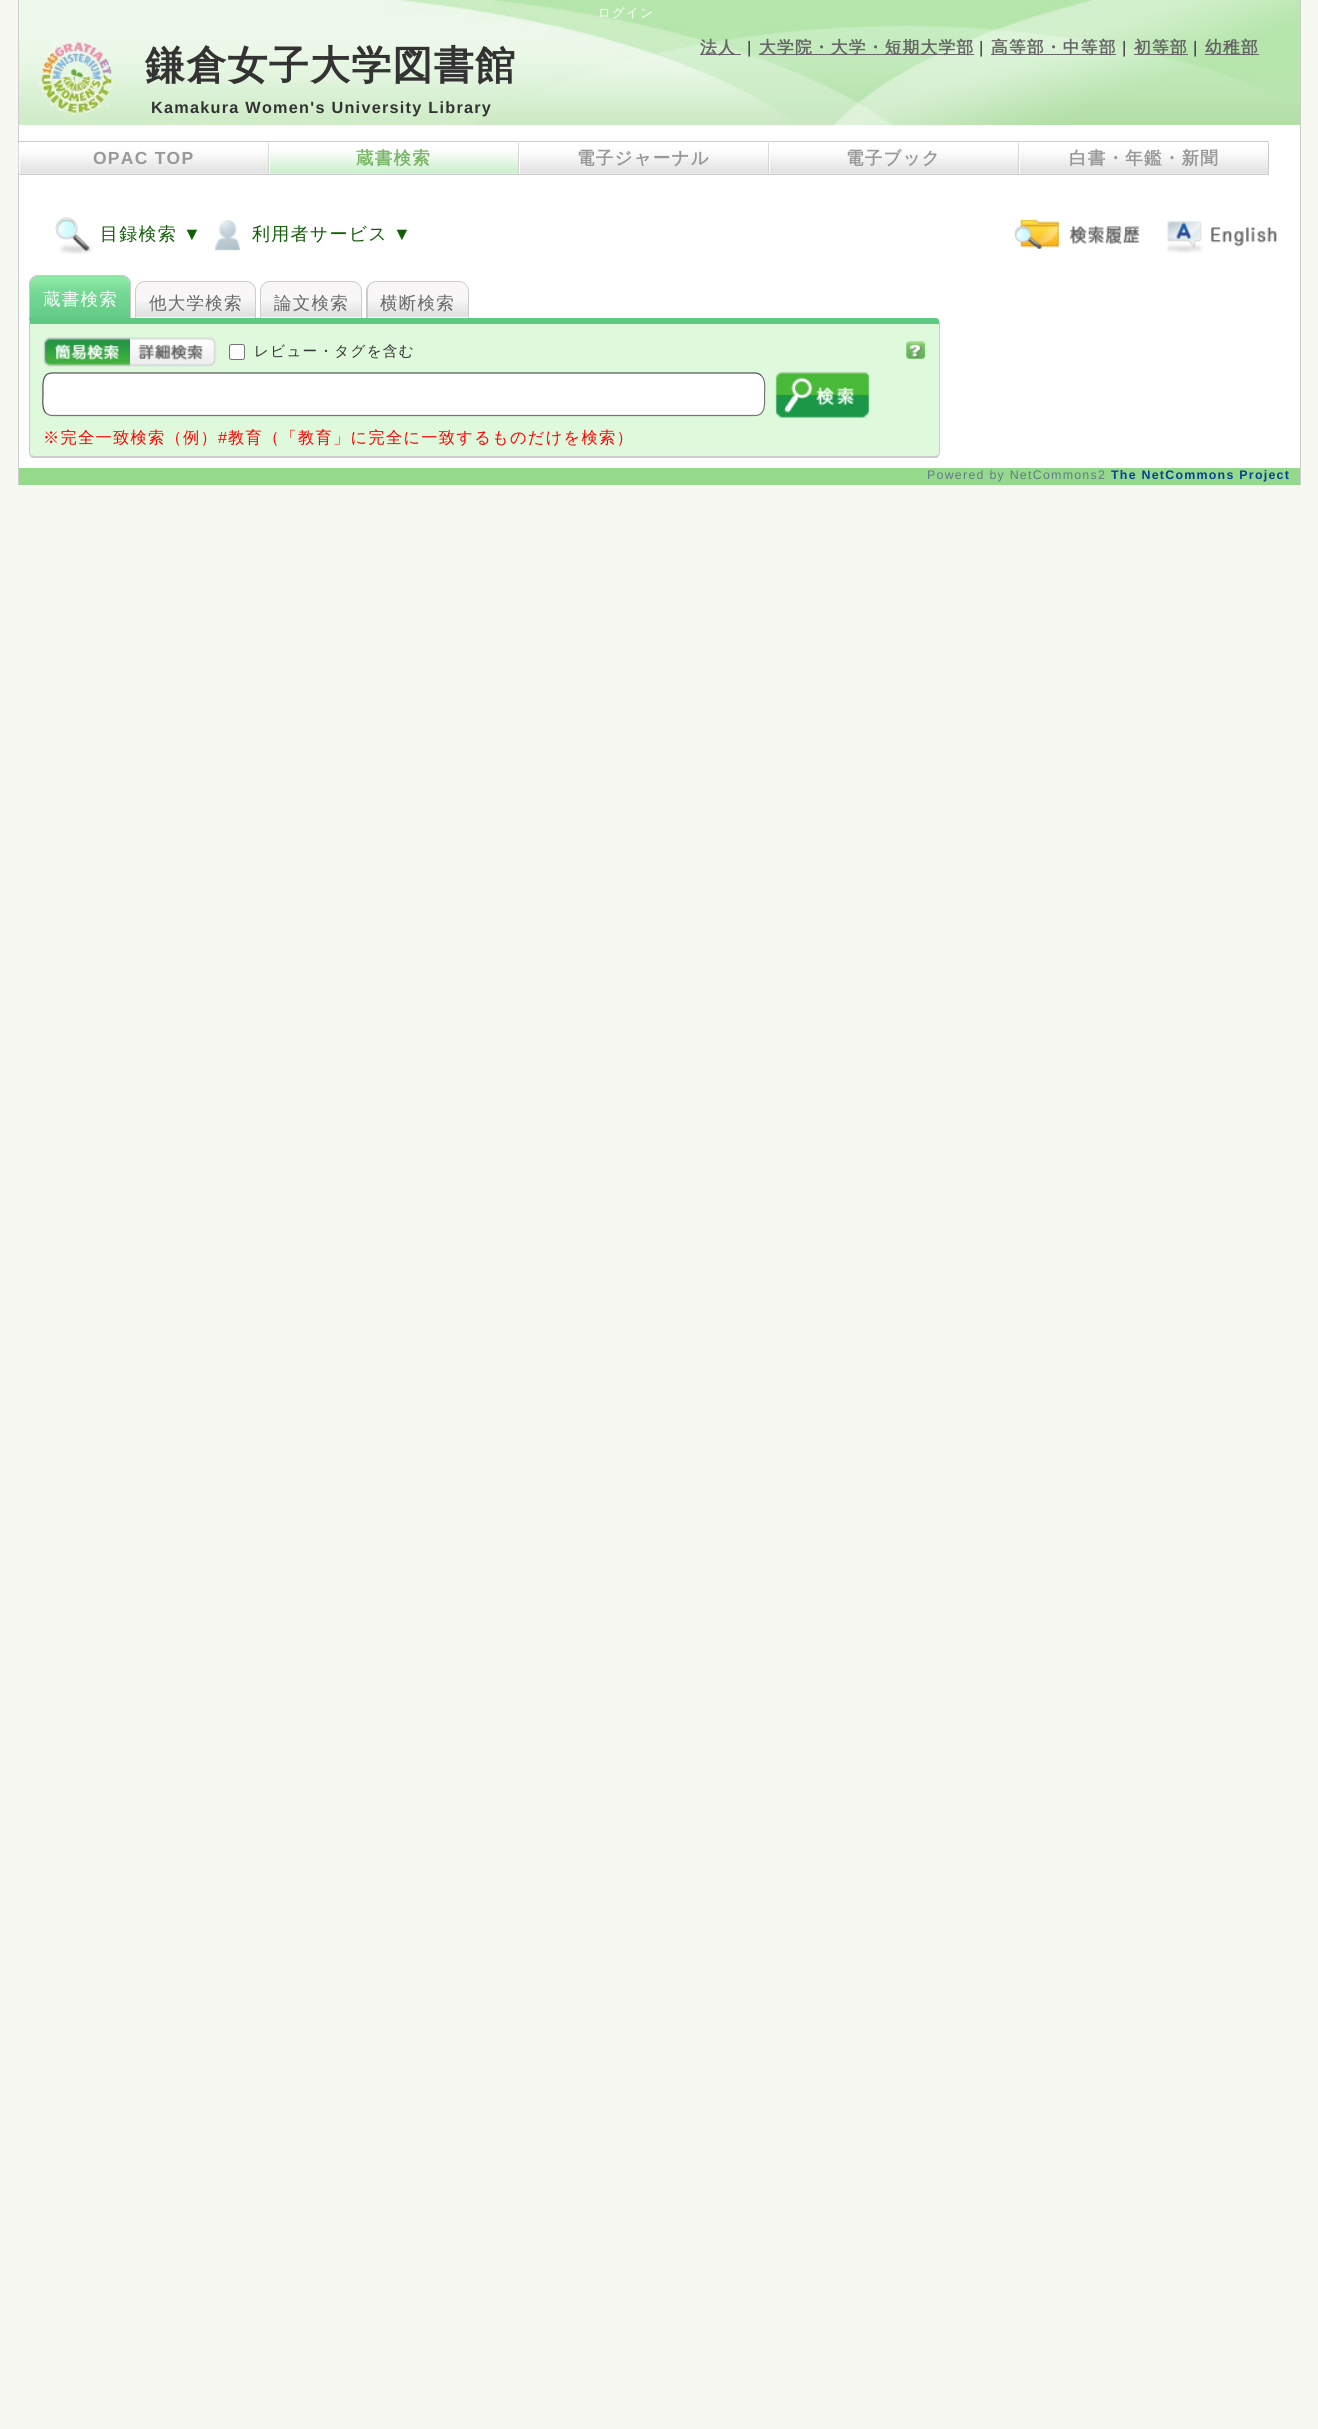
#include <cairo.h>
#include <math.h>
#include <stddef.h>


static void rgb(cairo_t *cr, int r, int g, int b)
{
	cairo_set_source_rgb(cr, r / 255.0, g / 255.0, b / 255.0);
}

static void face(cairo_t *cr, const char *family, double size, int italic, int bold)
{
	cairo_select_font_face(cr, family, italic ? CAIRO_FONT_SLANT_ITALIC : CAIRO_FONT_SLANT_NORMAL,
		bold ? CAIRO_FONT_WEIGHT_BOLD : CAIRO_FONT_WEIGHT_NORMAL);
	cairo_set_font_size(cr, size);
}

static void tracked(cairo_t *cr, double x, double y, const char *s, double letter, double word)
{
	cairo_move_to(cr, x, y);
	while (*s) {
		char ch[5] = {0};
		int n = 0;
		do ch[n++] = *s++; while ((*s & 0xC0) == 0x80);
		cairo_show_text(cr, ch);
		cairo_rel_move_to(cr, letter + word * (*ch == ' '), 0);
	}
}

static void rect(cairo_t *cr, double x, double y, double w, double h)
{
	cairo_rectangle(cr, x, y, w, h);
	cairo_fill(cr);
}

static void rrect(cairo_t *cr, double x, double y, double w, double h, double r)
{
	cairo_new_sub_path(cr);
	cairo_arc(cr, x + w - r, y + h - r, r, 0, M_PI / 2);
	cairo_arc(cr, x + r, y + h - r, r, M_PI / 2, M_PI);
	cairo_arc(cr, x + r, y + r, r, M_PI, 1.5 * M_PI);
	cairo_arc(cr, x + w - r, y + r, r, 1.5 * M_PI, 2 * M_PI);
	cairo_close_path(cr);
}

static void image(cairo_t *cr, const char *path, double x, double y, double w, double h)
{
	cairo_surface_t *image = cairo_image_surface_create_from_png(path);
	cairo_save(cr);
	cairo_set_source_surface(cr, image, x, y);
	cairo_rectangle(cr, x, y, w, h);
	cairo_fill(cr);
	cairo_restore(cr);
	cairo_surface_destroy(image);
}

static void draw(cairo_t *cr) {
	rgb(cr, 247, 248, 242);
	cairo_paint(cr);
	rgb(cr, 204, 204, 204);
	rect(cr, 1300, 0, 1, 485);
	rect(cr, 18, 0, 1, 485);
	image(cr, "image0.png", 19, 0, 1281, 25);
	face(cr, "WenQuanYi Zen Hei Medium", 12.5, 0, 0);
	rgb(cr, 255, 255, 255);
	tracked(cr, 598, 17, "ログイン", 1.25, 0);
	rect(cr, 19, 125, 1281, 343);
	image(cr, "image1.png", 19, 25, 1281, 100);
	image(cr, "image2.png", 37, 42, 88, 73);
	face(cr, "WenQuanYi Zen Hei", 40, 0, 1);
	rgb(cr, 51, 51, 51);
	tracked(cr, 145, 79, "鎌倉女子大学図書館", 1.25, 0);
	face(cr, "Liberation Sans", 16.25, 0, 1);
	tracked(cr, 151, 113, "Kamakura Women's University Library", 1.25, 0);
	rgb(cr, 102, 102, 102);
	rect(cr, 700, 54, 41, 1);
	face(cr, "WenQuanYi Zen Hei", 16.7, 0, 1);
	tracked(cr, 700, 53, "法人", 1.25, 0);
	face(cr, "Liberation Sans", 16.7, 0, 0);
	rgb(cr, 51, 51, 51);
	tracked(cr, 747, 53, "|", 1.25, 0);
	rgb(cr, 102, 102, 102);
	rect(cr, 759, 54, 215, 1);
	face(cr, "WenQuanYi Zen Hei", 16.7, 0, 1);
	tracked(cr, 759, 53, "大学院・大学・短期大学部", 1.25, 0);
	face(cr, "Liberation Sans", 16.7, 0, 0);
	rgb(cr, 51, 51, 51);
	tracked(cr, 979, 53, "|", 1.25, 0);
	rgb(cr, 102, 102, 102);
	rect(cr, 991, 54, 125, 1);
	face(cr, "WenQuanYi Zen Hei", 16.7, 0, 1);
	tracked(cr, 991, 53, "高等部・中等部", 1.25, 0);
	face(cr, "Liberation Sans", 16.7, 0, 0);
	rgb(cr, 51, 51, 51);
	tracked(cr, 1122, 53, "|", 1.25, 0);
	rgb(cr, 102, 102, 102);
	rect(cr, 1134, 54, 54, 1);
	face(cr, "WenQuanYi Zen Hei", 16.7, 0, 1);
	tracked(cr, 1134, 53, "初等部", 1.25, 0);
	face(cr, "Liberation Sans", 16.7, 0, 0);
	rgb(cr, 51, 51, 51);
	tracked(cr, 1193, 53, "|", 1.25, 0);
	rgb(cr, 102, 102, 102);
	rect(cr, 1205, 54, 54, 1);
	face(cr, "WenQuanYi Zen Hei", 16.7, 0, 1);
	tracked(cr, 1205, 53, "幼稚部", 1.25, 0);
	rgb(cr, 204, 204, 204);
	rect(cr, 19, 141, 1250, 1);
	rect(cr, 19, 174, 1250, 1);
	image(cr, "image3.png", 18, 142, 251, 32);
	rect(cr, 268, 143, 1, 31);
	rgb(cr, 255, 255, 255);
	rect(cr, 19, 143, 1, 31);
	face(cr, "Liberation Sans", 17.5, 0, 1);
	rgb(cr, 153, 153, 153);
	tracked(cr, 93, 164, "OPAC TOP", 1.25, 0);
	image(cr, "image4.png", 268, 143, 250, 31);
	rgb(cr, 204, 204, 204);
	rect(cr, 518, 143, 1, 31);
	rgb(cr, 255, 255, 255);
	rect(cr, 269, 143, 1, 31);
	face(cr, "WenQuanYi Zen Hei", 17.5, 0, 1);
	rgb(cr, 123, 183, 104);
	tracked(cr, 356, 164, "蔵書検索", 1.25, 0);
	image(cr, "image5.png", 518, 143, 250, 31);
	rgb(cr, 204, 204, 204);
	rect(cr, 768, 143, 1, 31);
	rgb(cr, 255, 255, 255);
	rect(cr, 519, 143, 1, 31);
	rgb(cr, 153, 153, 153);
	tracked(cr, 577, 164, "電子ジャーナル", 1.25, 0);
	image(cr, "image5.png", 768, 143, 250, 31);
	rgb(cr, 204, 204, 204);
	rect(cr, 1018, 143, 1, 31);
	rgb(cr, 255, 255, 255);
	rect(cr, 769, 143, 1, 31);
	rgb(cr, 153, 153, 153);
	tracked(cr, 846, 164, "電子ブック", 1.25, 0);
	image(cr, "image5.png", 1018, 143, 250, 31);
	rgb(cr, 204, 204, 204);
	rect(cr, 1268, 143, 1, 31);
	rgb(cr, 255, 255, 255);
	rect(cr, 1019, 143, 1, 31);
	rgb(cr, 153, 153, 153);
	tracked(cr, 1069, 164, "白書・年鑑・新聞", 1.25, 0);
	image(cr, "image6.png", 55, 217, 38, 37);
	face(cr, "WenQuanYi Zen Hei Medium", 18, 0, 0);
	rgb(cr, 19, 95, 9);
	tracked(cr, 100, 240, "目録検索", 1.25, 0);
	face(cr, "Liberation Sans", 18, 0, 0);
	tracked(cr, 183, 240, "▼", 1.25, 0);
	image(cr, "image7.png", 215, 220, 26, 31);
	face(cr, "WenQuanYi Zen Hei Medium", 18, 0, 0);
	tracked(cr, 252, 240, "利用者サービス", 1.25, 0);
	face(cr, "Liberation Sans", 18, 0, 0);
	tracked(cr, 393, 240, "▼", 1.25, 0);
	image(cr, "image8.png", 1014, 219, 126, 30);
	image(cr, "image9.png", 1166, 221, 111, 33);
	rgb(cr, 96, 202, 133);
	cairo_new_path(cr);
	cairo_move_to(cr, 39, 275);
	cairo_line_to(cr, 121, 275);
	cairo_curve_to(cr, 126.5, 275, 131, 279.5, 131, 285);
	cairo_line_to(cr, 131, 318);
	cairo_line_to(cr, 29, 318);
	cairo_line_to(cr, 29, 285);
	cairo_curve_to(cr, 29, 279.5, 33.5, 275, 39, 275);
	cairo_close_path(cr);
	cairo_fill(cr);
	image(cr, "image10.png", 29, 276, 103, 42);
	rgb(cr, 204, 204, 204);
	cairo_new_path(cr);
	cairo_move_to(cr, 39, 275);
	cairo_curve_to(cr, 33, 275, 29, 279, 29, 285);
	cairo_line_to(cr, 29, 318);
	cairo_line_to(cr, 30, 318);
	cairo_line_to(cr, 30, 285);
	cairo_curve_to(cr, 30, 280, 34, 276, 39, 276);
	cairo_line_to(cr, 121, 276);
	cairo_curve_to(cr, 126, 276, 130, 280, 130, 285);
	cairo_line_to(cr, 130, 318);
	cairo_line_to(cr, 131, 318);
	cairo_line_to(cr, 131, 285);
	cairo_curve_to(cr, 131, 279, 127, 275, 121, 275);
	cairo_close_path(cr);
	cairo_fill(cr);
	face(cr, "WenQuanYi Zen Hei Medium", 17.5, 0, 0);
	rgb(cr, 255, 255, 255);
	tracked(cr, 43, 305, "蔵書検索", 1.25, 0);
	image(cr, "image11.png", 135, 281, 121, 36);
	rgb(cr, 204, 204, 204);
	cairo_set_fill_rule(cr, CAIRO_FILL_RULE_EVEN_ODD);
	cairo_new_path(cr);
	cairo_move_to(cr, 145, 281);
	cairo_line_to(cr, 246, 281);
	cairo_curve_to(cr, 252, 281, 256, 286, 256, 291);
	cairo_line_to(cr, 256, 318);
	cairo_line_to(cr, 135, 318);
	cairo_line_to(cr, 135, 291);
	cairo_curve_to(cr, 135, 286, 139, 281, 145, 281);
	cairo_close_path(cr);
	cairo_move_to(cr, 145, 282);
	cairo_line_to(cr, 246, 282);
	cairo_curve_to(cr, 251, 282, 255, 286, 255, 291);
	cairo_line_to(cr, 255, 318);
	cairo_line_to(cr, 136, 318);
	cairo_line_to(cr, 136, 291);
	cairo_curve_to(cr, 136, 286, 140, 282, 145, 282);
	cairo_close_path(cr);
	cairo_fill(cr);
	rgb(cr, 102, 102, 102);
	tracked(cr, 149, 309, "他大学検索", 1.25, 0);
	image(cr, "image12.png", 260, 281, 103, 36);
	rgb(cr, 204, 204, 204);
	cairo_new_path(cr);
	cairo_move_to(cr, 270, 281);
	cairo_line_to(cr, 352, 281);
	cairo_curve_to(cr, 358, 281, 362, 286, 362, 291);
	cairo_line_to(cr, 362, 318);
	cairo_line_to(cr, 260, 318);
	cairo_line_to(cr, 260, 291);
	cairo_curve_to(cr, 260, 286, 264, 281, 270, 281);
	cairo_close_path(cr);
	cairo_move_to(cr, 270, 282);
	cairo_line_to(cr, 352, 282);
	cairo_curve_to(cr, 357, 282, 361, 286, 361, 291);
	cairo_line_to(cr, 361, 318);
	cairo_line_to(cr, 261, 318);
	cairo_line_to(cr, 261, 291);
	cairo_curve_to(cr, 261, 286, 265, 282, 270, 282);
	cairo_close_path(cr);
	cairo_fill(cr);
	rgb(cr, 102, 102, 102);
	tracked(cr, 274, 309, "論文検索", 1.25, 0);
	image(cr, "image13.png", 366, 281, 103, 36);
	rgb(cr, 204, 204, 204);
	cairo_new_path(cr);
	cairo_move_to(cr, 376, 281);
	cairo_line_to(cr, 459, 281);
	cairo_curve_to(cr, 464, 281, 469, 286, 469, 291);
	cairo_line_to(cr, 469, 318);
	cairo_line_to(cr, 366, 318);
	cairo_line_to(cr, 366, 291);
	cairo_curve_to(cr, 366, 286, 371, 281, 376, 281);
	cairo_close_path(cr);
	cairo_move_to(cr, 376, 282);
	cairo_line_to(cr, 459, 282);
	cairo_curve_to(cr, 464, 282, 468, 286, 468, 291);
	cairo_line_to(cr, 468, 318);
	cairo_line_to(cr, 368, 318);
	cairo_line_to(cr, 368, 291);
	cairo_curve_to(cr, 368, 286, 371, 282, 376, 282);
	cairo_close_path(cr);
	cairo_fill(cr);
	rgb(cr, 102, 102, 102);
	tracked(cr, 380, 309, "横断検索", 1.25, 0);
	rgb(cr, 223, 249, 220);
	cairo_set_fill_rule(cr, CAIRO_FILL_RULE_WINDING);
	cairo_new_path(cr);
	cairo_move_to(cr, 30, 324);
	cairo_line_to(cr, 939, 324);
	cairo_line_to(cr, 939, 453);
	cairo_curve_to(cr, 939, 455, 937, 456, 935, 456);
	cairo_line_to(cr, 34, 456);
	cairo_curve_to(cr, 32, 456, 30, 455, 30, 453);
	cairo_close_path(cr);
	cairo_fill(cr);
	rgb(cr, 96, 202, 133);
	cairo_new_path(cr);
	cairo_move_to(cr, 29, 318);
	cairo_line_to(cr, 30, 324);
	cairo_line_to(cr, 939, 324);
	cairo_line_to(cr, 939, 320);
	cairo_curve_to(cr, 939, 319, 937, 318, 935, 318);
	cairo_close_path(cr);
	cairo_fill(cr);
	rgb(cr, 204, 204, 204);
	cairo_new_path(cr);
	cairo_move_to(cr, 940, 453);
	cairo_line_to(cr, 940, 322);
	cairo_line_to(cr, 939, 320);
	cairo_line_to(cr, 939, 324);
	cairo_line_to(cr, 939, 453);
	cairo_line_to(cr, 938, 455);
	cairo_line_to(cr, 939, 456);
	cairo_close_path(cr);
	cairo_fill(cr);
	cairo_new_path(cr);
	cairo_move_to(cr, 32, 458);
	cairo_line_to(cr, 30, 456);
	cairo_line_to(cr, 31, 455);
	cairo_line_to(cr, 34, 456);
	cairo_line_to(cr, 935, 456);
	cairo_line_to(cr, 938, 455);
	cairo_line_to(cr, 939, 456);
	cairo_line_to(cr, 937, 458);
	cairo_close_path(cr);
	cairo_fill(cr);
	cairo_new_path(cr);
	cairo_move_to(cr, 30, 324);
	cairo_line_to(cr, 29, 319);
	cairo_line_to(cr, 29, 453);
	cairo_line_to(cr, 30, 456);
	cairo_line_to(cr, 31, 455);
	cairo_line_to(cr, 30, 453);
	cairo_close_path(cr);
	cairo_fill(cr);
	image(cr, "image14.png", 43, 337, 87, 30);
	image(cr, "image15.png", 130, 337, 87, 30);
	rgb(cr, 255, 255, 255);
	rrect(cr, 229.5, 344.5, 15, 15, 2);
	cairo_fill_preserve(cr);
	rgb(cr, 118, 118, 118);
	cairo_set_line_width(cr, 1);
	cairo_stroke(cr);
	face(cr, "WenQuanYi Zen Hei Medium", 14.6, 0, 0);
	rgb(cr, 51, 51, 51);
	tracked(cr, 254, 356, "レビュー・タグを含む", 1.25, 0);
	image(cr, "image16.png", 906, 341, 20, 18);
	rgb(cr, 255, 255, 255);
	rrect(cr, 43, 373, 722, 43, 10);
	cairo_fill(cr);
	cairo_new_path(cr);
	cairo_move_to(cr, 761.5, 376);
	cairo_curve_to(cr, 766, 380, 764.5, 389, 764.5, 394.5);
	cairo_curve_to(cr, 764.5, 401.5, 766.5, 415.5, 755, 415.5);
	cairo_line_to(cr, 52, 415.5);
	cairo_curve_to(cr, 50, 415.5, 47.5, 414.5, 46, 413);
	rgb(cr, 118, 118, 118);
	cairo_set_line_width(cr, 1.2);
	cairo_stroke(cr);
	cairo_new_path(cr);
	cairo_move_to(cr, 46, 413);
	cairo_curve_to(cr, 41.5, 408.5, 43, 400, 43, 394.5);
	cairo_curve_to(cr, 43, 387, 41, 373, 52, 373);
	cairo_line_to(cr, 755, 373);
	cairo_curve_to(cr, 757.5, 373, 760, 374, 761.5, 376);
	rgb(cr, 79, 79, 79);
	cairo_stroke(cr);
	image(cr, "image17.png", 775, 371, 95, 48);
	face(cr, "WenQuanYi Zen Hei Medium", 16.25, 0, 0);
	rgb(cr, 255, 0, 0);
	tracked(cr, 43, 443, "※完全一致検索（例）", 1.25, 0);
	face(cr, "Liberation Sans", 16.25, 0, 0);
	tracked(cr, 218, 443, "#", 1.25, 0);
	face(cr, "WenQuanYi Zen Hei Medium", 16.25, 0, 0);
	tracked(cr, 228, 443, "教育（「教育」に完全に一致するものだけを検索）", 1.25, 0);
	rgb(cr, 149, 217, 141);
	rect(cr, 19, 468, 1281, 17);
	face(cr, "Liberation Sans", 12.4, 0, 0);
	rgb(cr, 99, 122, 137);
	tracked(cr, 927, 479, "Powered by NetCommons2", 1.25, 0);
	face(cr, "Liberation Sans", 12.4, 0, 1);
	rgb(cr, 4, 65, 154);
	tracked(cr, 1111, 479, "The NetCommons Project", 1.25, 0);
}

int main(void) {
	cairo_surface_t *surface = cairo_image_surface_create(CAIRO_FORMAT_RGB24, 1318, 2429);
	cairo_t *cr = cairo_create(surface);
	cairo_font_options_t *options = cairo_font_options_create();
	cairo_font_options_set_hint_metrics(options, CAIRO_HINT_METRICS_OFF);
	cairo_font_options_set_hint_style(options, CAIRO_HINT_STYLE_NONE);
	cairo_set_font_options(cr, options);
	cairo_set_miter_limit(cr, 4);
	draw(cr);
	cairo_surface_write_to_png(surface, "render.png");
	cairo_font_options_destroy(options);
	cairo_destroy(cr);
	cairo_surface_destroy(surface);
	return 0;
}
